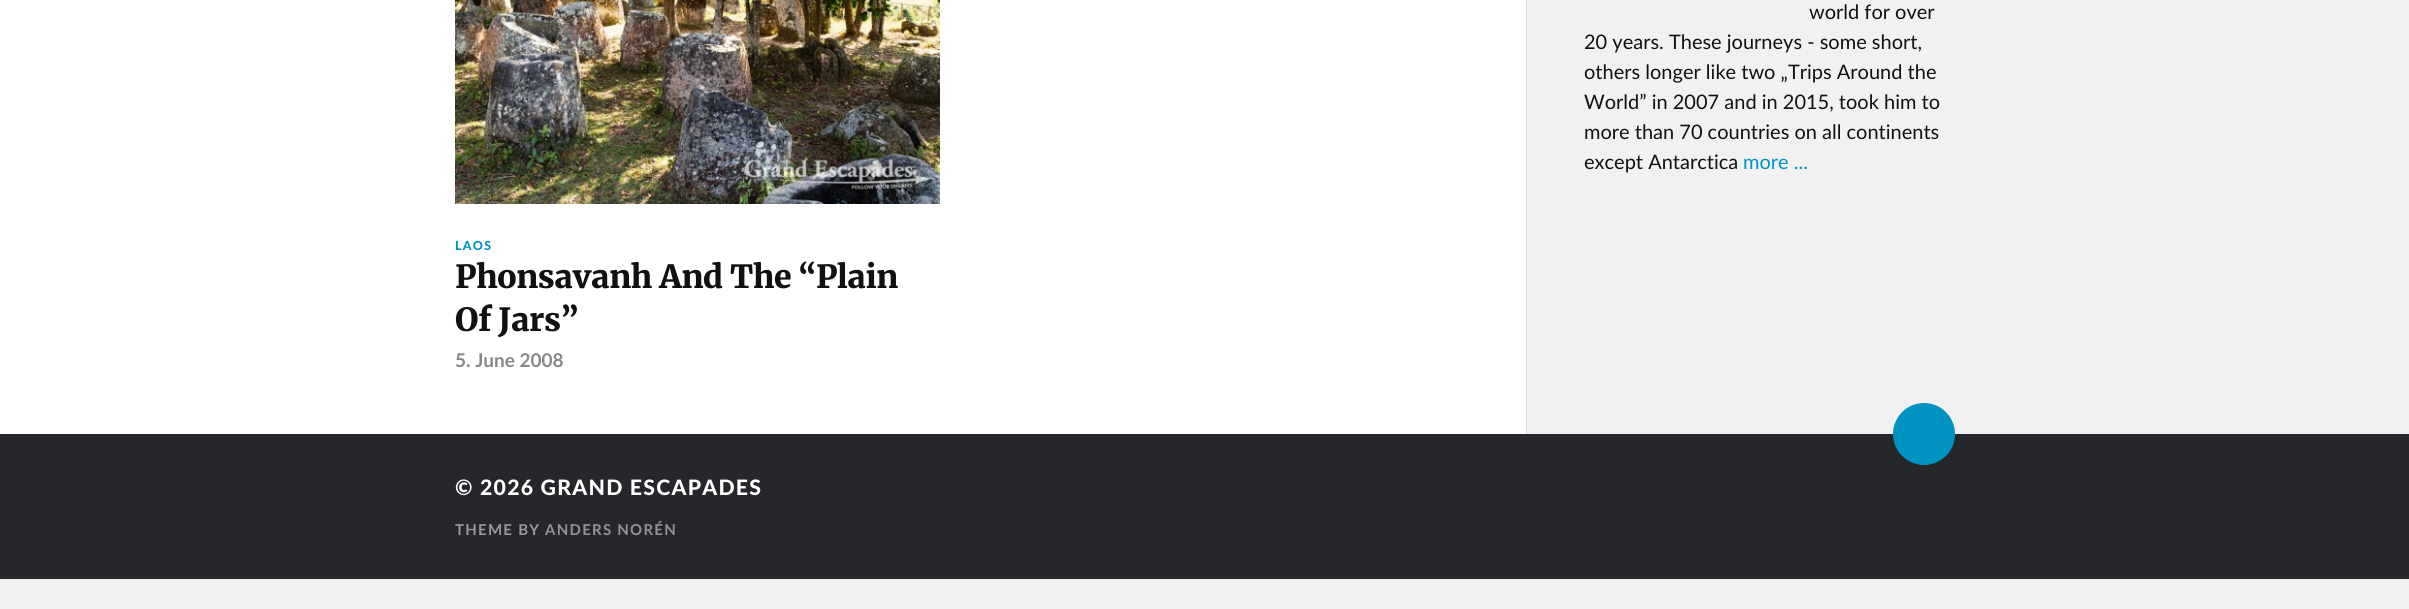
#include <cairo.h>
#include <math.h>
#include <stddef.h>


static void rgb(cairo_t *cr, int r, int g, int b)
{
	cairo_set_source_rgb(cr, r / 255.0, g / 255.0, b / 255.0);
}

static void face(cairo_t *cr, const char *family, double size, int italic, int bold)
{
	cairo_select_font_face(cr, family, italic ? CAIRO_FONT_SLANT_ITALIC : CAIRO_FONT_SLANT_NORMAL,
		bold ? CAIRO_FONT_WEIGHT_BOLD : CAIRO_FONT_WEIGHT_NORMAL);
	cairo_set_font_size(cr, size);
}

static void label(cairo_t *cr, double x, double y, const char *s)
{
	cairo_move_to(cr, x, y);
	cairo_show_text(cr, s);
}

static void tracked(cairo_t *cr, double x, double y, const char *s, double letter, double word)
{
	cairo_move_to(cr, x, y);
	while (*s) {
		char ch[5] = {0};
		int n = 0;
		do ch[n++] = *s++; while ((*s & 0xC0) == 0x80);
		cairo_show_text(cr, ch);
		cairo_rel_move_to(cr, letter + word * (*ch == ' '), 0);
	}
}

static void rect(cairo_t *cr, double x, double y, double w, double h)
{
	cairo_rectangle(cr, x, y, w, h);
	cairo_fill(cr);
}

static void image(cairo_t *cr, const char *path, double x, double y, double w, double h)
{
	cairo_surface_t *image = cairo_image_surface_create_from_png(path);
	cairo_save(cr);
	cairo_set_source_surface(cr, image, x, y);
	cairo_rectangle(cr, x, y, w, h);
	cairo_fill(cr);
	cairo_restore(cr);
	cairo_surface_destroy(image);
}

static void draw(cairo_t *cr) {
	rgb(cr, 241, 241, 241);
	cairo_paint(cr);
	rgb(cr, 221, 221, 221);
	rect(cr, 1526, 0, 1, 434);
	face(cr, "Lato", 20, 0, 0);
	rgb(cr, 17, 17, 17);
	label(cr, 1809, 19, "world for over");
	label(cr, 1584, 49, "20 years. These journeys - some short,");
	label(cr, 1584, 79, "others longer like two „Trips Around the");
	label(cr, 1584, 109, "World” in 2007 and in 2015, took him to");
	label(cr, 1584, 139, "more than 70 countries on all continents");
	label(cr, 1584, 169, "except Antarctica");
	rgb(cr, 0, 147, 194);
	label(cr, 1743, 169, "more ...");
	rgb(cr, 255, 255, 255);
	rect(cr, 0, 0, 1526, 434);
	image(cr, "image0.png", 455, 0, 485, 204);
	face(cr, "Lato Black", 12.5, 0, 0);
	rgb(cr, 0, 147, 194);
	tracked(cr, 455, 250, "LAOS", 1.25, 0);
	face(cr, "Merriweather Black", 31.9, 0, 0);
	rgb(cr, 17, 17, 17);
	tracked(cr, 455, 288, "Phonsavanh And The “Plain", -0.3, 0);
	tracked(cr, 455, 331, "Of Jars”", -0.3, 0);
	face(cr, "Lato", 19, 0, 1);
	rgb(cr, 136, 136, 136);
	label(cr, 455, 367, "5. June 2008");
	rgb(cr, 38, 39, 43);
	rect(cr, 0, 434, 2409, 145);
	rgb(cr, 0, 147, 194);
	cairo_new_path(cr);
	cairo_arc(cr, 1924, 434, 31, 0, 2 * M_PI);
	cairo_fill(cr);
	face(cr, "Lato Black", 21.25, 0, 0);
	rgb(cr, 255, 255, 255);
	tracked(cr, 455, 495, "© 2026 GRAND ESCAPADES", 1.25, 0);
	face(cr, "Lato", 15, 0, 1);
	rgb(cr, 153, 153, 153);
	tracked(cr, 455, 535, "THEME BY", 1.25, 0);
	rgb(cr, 147, 147, 149);
	tracked(cr, 545, 535, "ANDERS NORÉN", 1.25, 0);
}

int main(void) {
	cairo_surface_t *surface = cairo_image_surface_create(CAIRO_FORMAT_RGB24, 2409, 609);
	cairo_t *cr = cairo_create(surface);
	cairo_font_options_t *options = cairo_font_options_create();
	cairo_font_options_set_hint_metrics(options, CAIRO_HINT_METRICS_OFF);
	cairo_font_options_set_hint_style(options, CAIRO_HINT_STYLE_NONE);
	cairo_set_font_options(cr, options);
	cairo_set_miter_limit(cr, 4);
	draw(cr);
	cairo_surface_write_to_png(surface, "render.png");
	cairo_font_options_destroy(options);
	cairo_destroy(cr);
	cairo_surface_destroy(surface);
	return 0;
}
